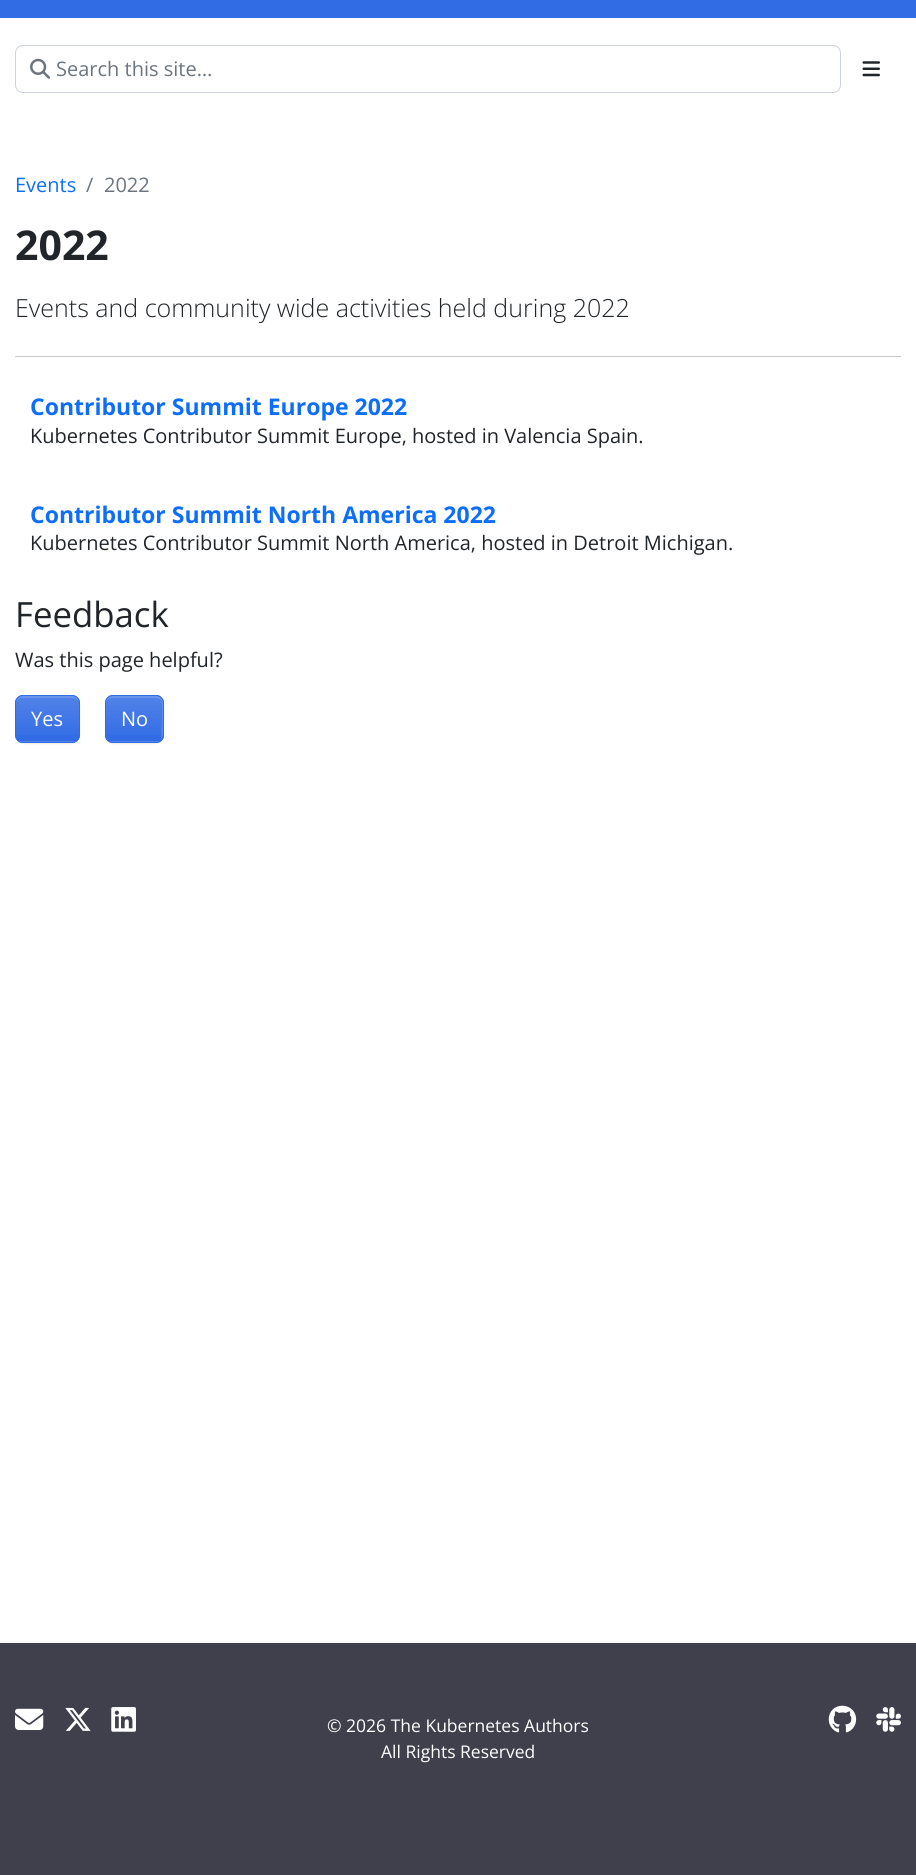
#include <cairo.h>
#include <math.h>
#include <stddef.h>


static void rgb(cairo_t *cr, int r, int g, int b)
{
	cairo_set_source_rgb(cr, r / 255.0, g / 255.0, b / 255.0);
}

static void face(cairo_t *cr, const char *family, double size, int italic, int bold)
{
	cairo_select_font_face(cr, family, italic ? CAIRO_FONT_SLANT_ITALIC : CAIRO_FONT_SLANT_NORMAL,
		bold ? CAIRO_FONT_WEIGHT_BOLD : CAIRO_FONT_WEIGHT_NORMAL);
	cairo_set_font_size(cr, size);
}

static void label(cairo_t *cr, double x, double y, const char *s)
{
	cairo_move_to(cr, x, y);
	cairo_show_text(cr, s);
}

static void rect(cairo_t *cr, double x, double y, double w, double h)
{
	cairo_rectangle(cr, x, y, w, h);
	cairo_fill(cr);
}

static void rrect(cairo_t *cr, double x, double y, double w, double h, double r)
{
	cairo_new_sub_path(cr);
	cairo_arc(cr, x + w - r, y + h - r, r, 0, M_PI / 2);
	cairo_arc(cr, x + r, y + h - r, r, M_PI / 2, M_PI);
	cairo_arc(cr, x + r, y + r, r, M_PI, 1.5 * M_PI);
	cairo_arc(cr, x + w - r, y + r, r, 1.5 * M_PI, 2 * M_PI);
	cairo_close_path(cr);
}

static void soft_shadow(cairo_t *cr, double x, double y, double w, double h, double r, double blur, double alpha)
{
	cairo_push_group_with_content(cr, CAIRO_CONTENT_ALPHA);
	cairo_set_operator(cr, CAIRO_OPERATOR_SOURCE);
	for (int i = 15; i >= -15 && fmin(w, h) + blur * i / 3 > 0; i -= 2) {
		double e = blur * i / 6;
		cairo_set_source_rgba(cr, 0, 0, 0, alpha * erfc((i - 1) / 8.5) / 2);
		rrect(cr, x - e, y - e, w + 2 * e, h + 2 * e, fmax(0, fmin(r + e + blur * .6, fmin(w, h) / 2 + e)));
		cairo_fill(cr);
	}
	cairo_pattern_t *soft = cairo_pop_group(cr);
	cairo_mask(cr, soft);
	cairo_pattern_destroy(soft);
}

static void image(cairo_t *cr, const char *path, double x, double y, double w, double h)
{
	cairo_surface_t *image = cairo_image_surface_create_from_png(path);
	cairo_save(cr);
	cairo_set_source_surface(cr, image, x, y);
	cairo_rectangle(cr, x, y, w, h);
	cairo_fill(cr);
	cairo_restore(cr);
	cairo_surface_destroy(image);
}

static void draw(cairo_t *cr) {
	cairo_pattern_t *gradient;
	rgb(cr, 255, 255, 255);
	cairo_paint(cr);
	rgb(cr, 50, 108, 229);
	rect(cr, 0, 0, 916, 18);
	rrect(cr, 15.5, 45.5, 825, 47, 7.5);
	rgb(cr, 206, 212, 218);
	cairo_set_line_width(cr, 1);
	cairo_stroke(cr);
	image(cr, "image0.png", 30, 58, 20, 21);
	face(cr, "Open Sans", 20, 0, 0);
	rgb(cr, 108, 117, 125);
	label(cr, 56, 76, "Search this site…");
	image(cr, "image1.png", 862, 61, 18, 16);
	rgb(cr, 13, 110, 253);
	label(cr, 15, 192, "Events");
	rgb(cr, 108, 117, 125);
	label(cr, 86, 192, "/");
	label(cr, 104, 192, "2022");
	face(cr, "Open Sans", 41, 0, 1);
	rgb(cr, 33, 37, 41);
	label(cr, 15, 260, "2022");
	face(cr, "Open Sans Light", 25, 0, 0);
	label(cr, 15, 317, "Events and community wide activities held during 2022");
	rgb(cr, 200, 201, 202);
	rect(cr, 15, 356, 886, 1);
	face(cr, "Open Sans", 23, 0, 1);
	rgb(cr, 13, 110, 253);
	label(cr, 30, 415, "Contributor Summit Europe 2022");
	face(cr, "Open Sans", 20, 0, 0);
	rgb(cr, 33, 37, 41);
	label(cr, 30, 443, "Kubernetes Contributor Summit Europe, hosted in Valencia Spain.");
	face(cr, "Open Sans", 23, 0, 1);
	rgb(cr, 13, 110, 253);
	label(cr, 30, 523, "Contributor Summit North America 2022");
	face(cr, "Open Sans", 20, 0, 0);
	rgb(cr, 33, 37, 41);
	label(cr, 30, 550, "Kubernetes Contributor Summit North America, hosted in Detroit Michigan.");
	face(cr, "Open Sans", 34.75, 0, 0);
	label(cr, 15, 627, "Feedback");
	face(cr, "Open Sans", 20, 0, 0);
	label(cr, 15, 667, "Was this page helpful?");
	rgb(cr, 0, 0, 0);
	soft_shadow(cr, 15, 696, 65, 48, 8, 0.5, 0.07);
	rgb(cr, 50, 108, 229);
	rrect(cr, 15, 695, 65, 48, 8);
	cairo_fill(cr);
	cairo_save(cr);
	rrect(cr, 15, 695, 65, 48, 8);
	cairo_clip(cr);
	gradient = cairo_pattern_create_linear(48, 696, 48, 741);
	cairo_pattern_add_color_stop_rgba(gradient, 0, 1, 1, 1, 0.15);
	cairo_pattern_add_color_stop_rgba(gradient, 1, 1, 1, 1, 0);
	cairo_set_source(cr, gradient);
	cairo_pattern_destroy(gradient);
	rect(cr, 15, 696, 65, 39);
	gradient = cairo_pattern_create_linear(48, 741, 48, 786);
	cairo_pattern_add_color_stop_rgba(gradient, 0, 1, 1, 1, 0.15);
	cairo_pattern_add_color_stop_rgba(gradient, 1, 1, 1, 1, 0);
	cairo_set_source(cr, gradient);
	cairo_pattern_destroy(gradient);
	rect(cr, 15, 741, 65, 2);
	cairo_restore(cr);
	cairo_set_source_rgba(cr, 1, 1, 1, 0.15);
	cairo_new_path(cr);
	cairo_move_to(cr, 22, 698);
	cairo_line_to(cr, 72, 698);
	cairo_curve_to(cr, 76, 698, 79, 700, 79, 704);
	cairo_curve_to(cr, 79, 694, 73, 696, 64, 696);
	cairo_line_to(cr, 30, 696);
	cairo_curve_to(cr, 22, 696, 16, 694, 16, 704);
	cairo_curve_to(cr, 16, 700, 19, 698, 22, 698);
	cairo_close_path(cr);
	cairo_fill(cr);
	rrect(cr, 15.5, 695.5, 64, 47, 7.5);
	rgb(cr, 50, 108, 229);
	cairo_stroke(cr);
	rgb(cr, 255, 255, 255);
	label(cr, 31, 726, "Yes");
	rgb(cr, 0, 0, 0);
	soft_shadow(cr, 105, 696, 59, 48, 8, 0.5, 0.07);
	rgb(cr, 50, 108, 229);
	rrect(cr, 105, 695, 59, 48, 8);
	cairo_fill(cr);
	cairo_save(cr);
	rrect(cr, 105, 695, 59, 48, 8);
	cairo_clip(cr);
	gradient = cairo_pattern_create_linear(134, 696, 134, 741);
	cairo_pattern_add_color_stop_rgba(gradient, 0, 1, 1, 1, 0.15);
	cairo_pattern_add_color_stop_rgba(gradient, 1, 1, 1, 1, 0);
	cairo_set_source(cr, gradient);
	cairo_pattern_destroy(gradient);
	rect(cr, 105, 696, 59, 39);
	gradient = cairo_pattern_create_linear(134, 741, 134, 786);
	cairo_pattern_add_color_stop_rgba(gradient, 0, 1, 1, 1, 0.15);
	cairo_pattern_add_color_stop_rgba(gradient, 1, 1, 1, 1, 0);
	cairo_set_source(cr, gradient);
	cairo_pattern_destroy(gradient);
	rect(cr, 105, 741, 59, 2);
	cairo_restore(cr);
	cairo_set_source_rgba(cr, 1, 1, 1, 0.15);
	cairo_new_path(cr);
	cairo_move_to(cr, 112, 698);
	cairo_line_to(cr, 149, 698);
	cairo_curve_to(cr, 164, 698, 162, 699, 162, 715);
	cairo_line_to(cr, 161, 739);
	cairo_curve_to(cr, 162, 738, 163, 737, 163, 735);
	cairo_line_to(cr, 163, 702);
	cairo_curve_to(cr, 163, 699, 160, 696, 157, 696);
	cairo_line_to(cr, 112, 696);
	cairo_curve_to(cr, 109, 696, 106, 699, 106, 702);
	cairo_line_to(cr, 106, 704);
	cairo_curve_to(cr, 106, 700, 109, 698, 112, 698);
	cairo_close_path(cr);
	cairo_fill(cr);
	rrect(cr, 105.5, 695.5, 58, 47, 7.5);
	rgb(cr, 50, 108, 229);
	cairo_stroke(cr);
	rgb(cr, 255, 255, 255);
	label(cr, 121, 726, "No");
	rgb(cr, 64, 63, 76);
	rect(cr, 0, 1643, 916, 232);
	image(cr, "image2.png", 15, 1708, 29, 22);
	image(cr, "image3.png", 65, 1707, 26, 24);
	image(cr, "image4.png", 111, 1707, 25, 25);
	face(cr, "Open Sans", 17.5, 0, 0);
	rgb(cr, 255, 255, 255);
	label(cr, 327, 1732, "© 2026 The Kubernetes Authors");
	label(cr, 381, 1758, "All Rights Reserved");
	image(cr, "image5.png", 828, 1705, 29, 28);
	image(cr, "image6.png", 876, 1707, 25, 25);
}

int main(void) {
	cairo_surface_t *surface = cairo_image_surface_create(CAIRO_FORMAT_RGB24, 916, 1875);
	cairo_t *cr = cairo_create(surface);
	cairo_font_options_t *options = cairo_font_options_create();
	cairo_font_options_set_hint_metrics(options, CAIRO_HINT_METRICS_OFF);
	cairo_font_options_set_hint_style(options, CAIRO_HINT_STYLE_NONE);
	cairo_set_font_options(cr, options);
	cairo_set_miter_limit(cr, 4);
	draw(cr);
	cairo_surface_write_to_png(surface, "render.png");
	cairo_font_options_destroy(options);
	cairo_destroy(cr);
	cairo_surface_destroy(surface);
	return 0;
}
